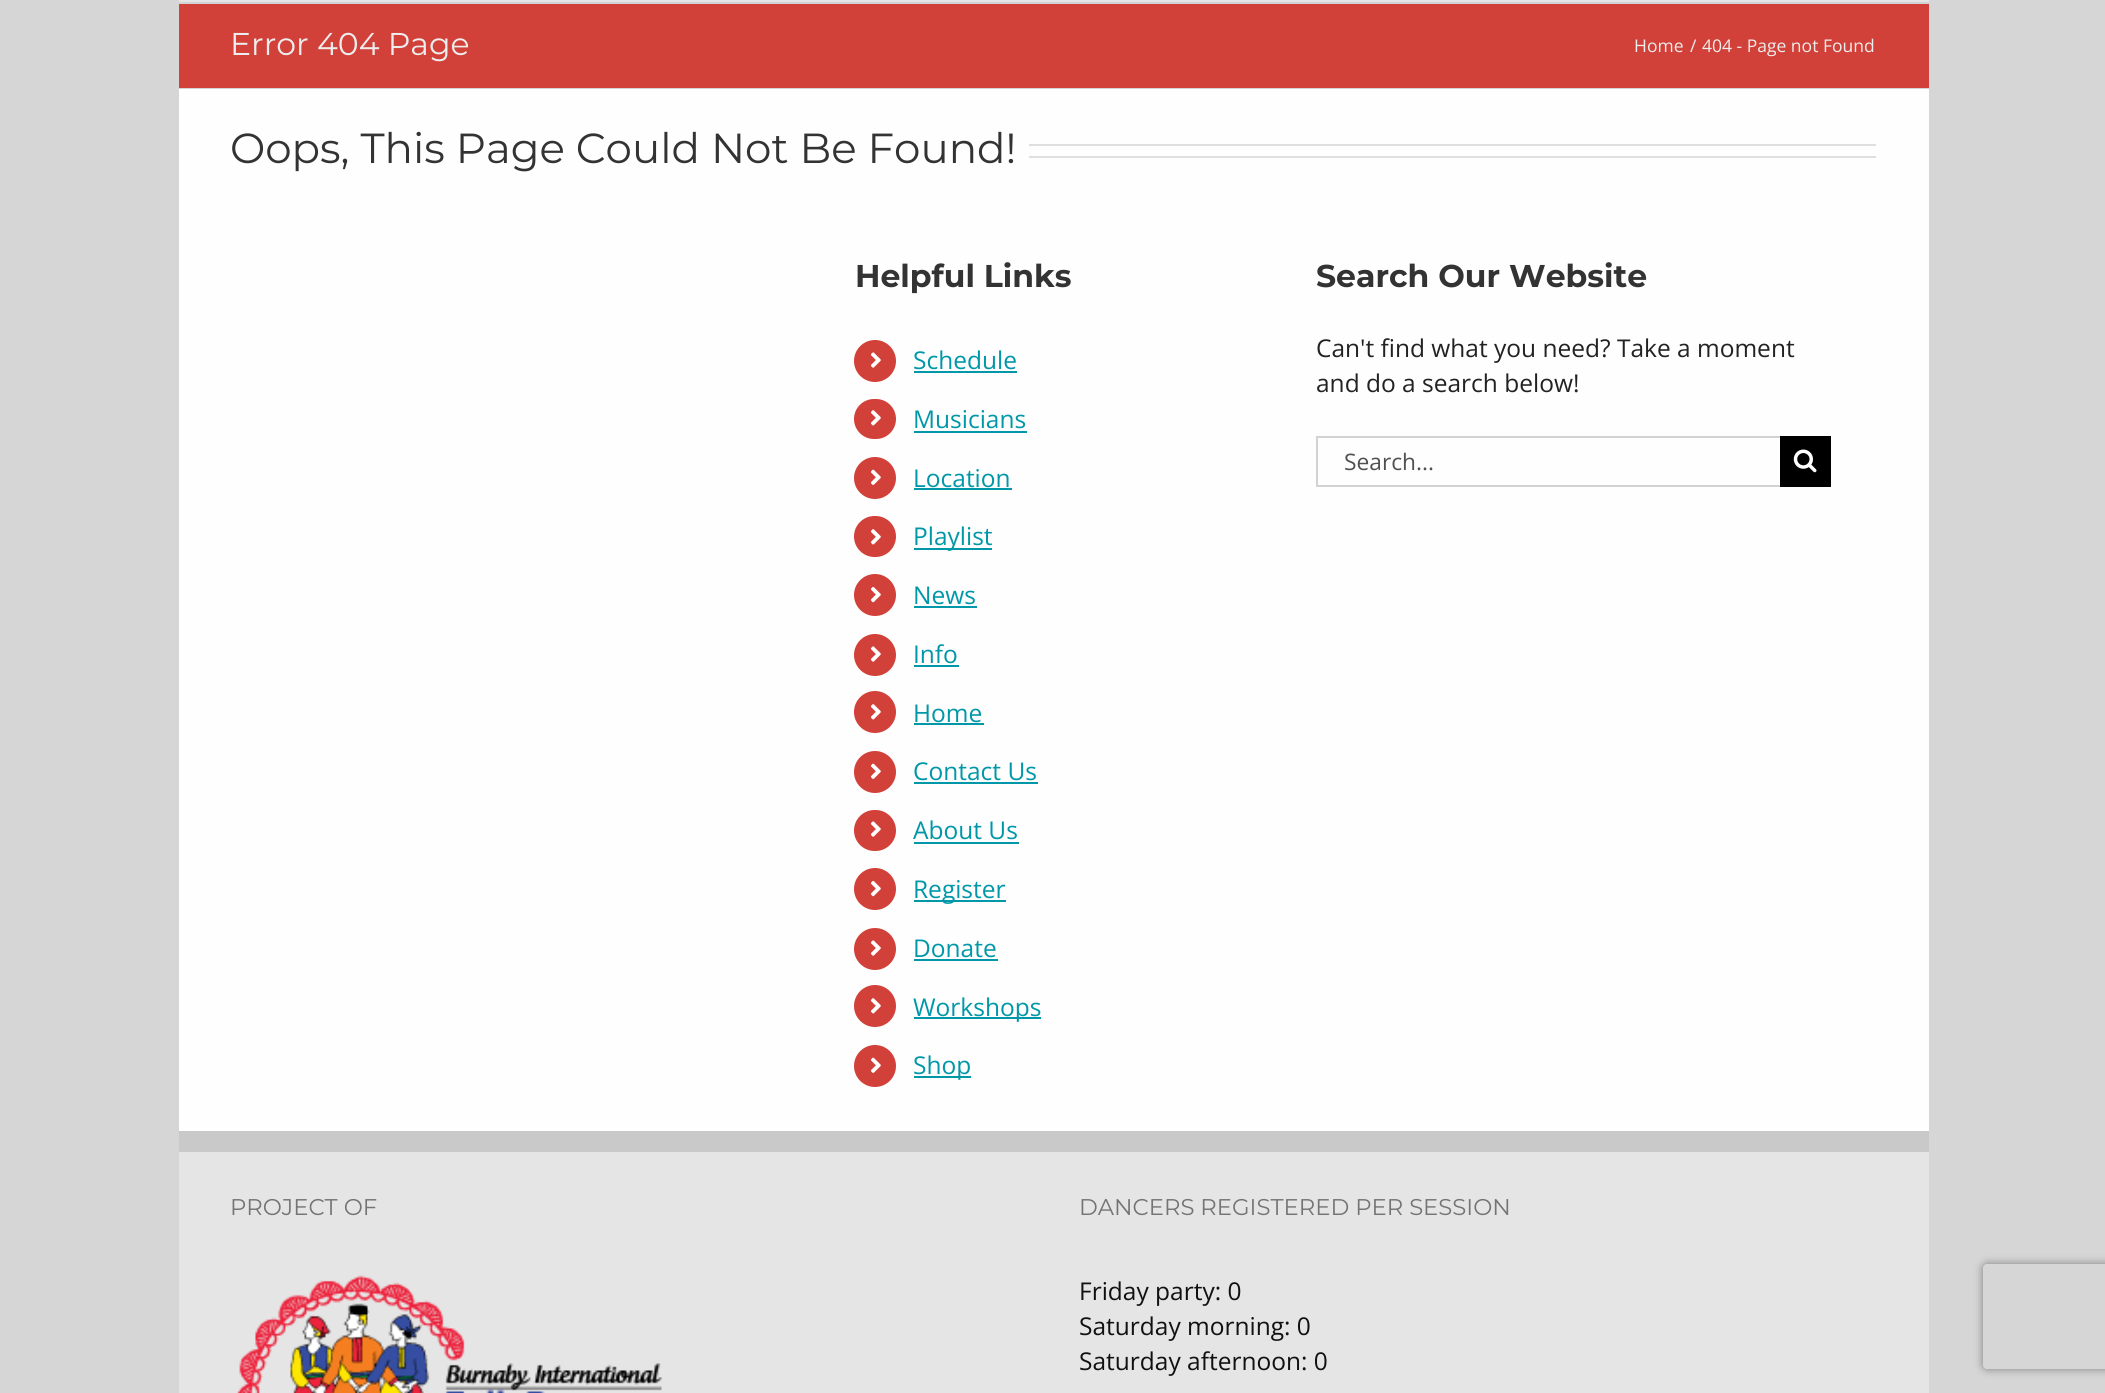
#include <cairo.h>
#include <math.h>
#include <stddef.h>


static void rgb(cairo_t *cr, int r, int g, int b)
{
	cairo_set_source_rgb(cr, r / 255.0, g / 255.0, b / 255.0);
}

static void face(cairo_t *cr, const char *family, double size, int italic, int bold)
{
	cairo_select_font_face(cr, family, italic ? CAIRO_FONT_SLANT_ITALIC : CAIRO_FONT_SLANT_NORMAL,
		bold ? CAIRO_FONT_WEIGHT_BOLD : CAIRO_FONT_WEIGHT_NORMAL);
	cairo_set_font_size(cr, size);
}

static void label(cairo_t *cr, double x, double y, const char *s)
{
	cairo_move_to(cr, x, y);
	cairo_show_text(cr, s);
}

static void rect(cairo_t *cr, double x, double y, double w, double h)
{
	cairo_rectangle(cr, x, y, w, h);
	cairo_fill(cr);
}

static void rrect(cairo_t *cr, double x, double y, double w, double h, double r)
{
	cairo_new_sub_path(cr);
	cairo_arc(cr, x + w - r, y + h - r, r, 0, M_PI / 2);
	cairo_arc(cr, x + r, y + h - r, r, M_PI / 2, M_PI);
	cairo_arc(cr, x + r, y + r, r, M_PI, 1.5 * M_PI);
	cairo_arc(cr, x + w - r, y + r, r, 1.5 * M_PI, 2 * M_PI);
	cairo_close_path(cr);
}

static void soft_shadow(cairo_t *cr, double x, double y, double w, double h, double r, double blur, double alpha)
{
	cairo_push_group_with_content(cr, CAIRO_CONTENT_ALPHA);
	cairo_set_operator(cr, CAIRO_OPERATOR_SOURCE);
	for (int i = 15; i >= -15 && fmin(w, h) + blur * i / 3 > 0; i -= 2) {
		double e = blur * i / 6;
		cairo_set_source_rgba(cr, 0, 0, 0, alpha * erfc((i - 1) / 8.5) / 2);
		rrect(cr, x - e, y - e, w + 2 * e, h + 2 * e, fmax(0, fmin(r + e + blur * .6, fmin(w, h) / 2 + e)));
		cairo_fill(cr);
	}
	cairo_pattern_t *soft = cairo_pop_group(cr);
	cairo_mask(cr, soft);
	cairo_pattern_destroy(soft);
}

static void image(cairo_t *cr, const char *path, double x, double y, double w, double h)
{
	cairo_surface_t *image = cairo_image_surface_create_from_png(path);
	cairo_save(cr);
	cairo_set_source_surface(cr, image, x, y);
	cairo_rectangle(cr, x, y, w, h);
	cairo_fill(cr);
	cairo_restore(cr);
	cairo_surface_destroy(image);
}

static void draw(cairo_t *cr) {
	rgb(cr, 215, 214, 214);
	cairo_paint(cr);
	rgb(cr, 229, 229, 229);
	rect(cr, 179, 0, 1750, 2);
	rgb(cr, 210, 65, 57);
	rect(cr, 179, 4, 1750, 84);
	rgb(cr, 210, 211, 212);
	rect(cr, 179, 2, 1750, 2);
	rect(cr, 179, 88, 1750, 1);
	face(cr, "Montserrat", 31.5, 0, 0);
	rgb(cr, 237, 237, 237);
	label(cr, 230, 55, "Error 404 Page");
	face(cr, "Open Sans", 17.5, 0, 0);
	label(cr, 1634, 52, "Home");
	label(cr, 1690, 52, "/");
	label(cr, 1702, 52, "404 - Page not Found");
	rgb(cr, 254, 254, 254);
	rect(cr, 179, 89, 1750, 1042);
	face(cr, "Montserrat", 42, 0, 0);
	rgb(cr, 51, 51, 51);
	label(cr, 230, 163, "Oops, This Page Could Not Be Found!");
	rgb(cr, 224, 222, 222);
	rect(cr, 1029, 144, 847, 2);
	rect(cr, 1029, 156, 847, 2);
	face(cr, "Montserrat", 31.5, 0, 1);
	rgb(cr, 51, 51, 51);
	label(cr, 855, 287, "Helpful Links");
	rgb(cr, 210, 65, 57);
	cairo_new_path(cr);
	cairo_arc(cr, 875, 361, 21, 0, 2 * M_PI);
	cairo_fill(cr);
	image(cr, "image0.png", 871, 352, 10, 16);
	face(cr, "Open Sans", 24.5, 0, 0);
	rgb(cr, 0, 151, 168);
	label(cr, 913, 369, "Schedule");
	rect(cr, 914, 371, 103, 2);
	rgb(cr, 210, 65, 57);
	rrect(cr, 854, 399, 42, 40, 20);
	cairo_fill(cr);
	image(cr, "image1.png", 871, 410, 10, 16);
	rgb(cr, 0, 151, 168);
	label(cr, 913, 428, "Musicians");
	rect(cr, 914, 431, 113, 2);
	rgb(cr, 210, 65, 57);
	cairo_new_path(cr);
	cairo_arc(cr, 875, 478, 21, 0, 2 * M_PI);
	cairo_fill(cr);
	image(cr, "image2.png", 871, 469, 10, 16);
	rgb(cr, 0, 151, 168);
	label(cr, 913, 487, "Location");
	rect(cr, 914, 488, 98, 2);
	rgb(cr, 210, 65, 57);
	rrect(cr, 854, 516, 42, 41, 20.5);
	cairo_fill(cr);
	image(cr, "image1.png", 871, 529, 10, 16);
	rgb(cr, 0, 151, 168);
	rect(cr, 914, 548, 78, 2);
	label(cr, 913, 545, "Playlist");
	rgb(cr, 210, 65, 57);
	cairo_new_path(cr);
	cairo_arc(cr, 875, 595, 21, 0, 2 * M_PI);
	cairo_fill(cr);
	image(cr, "image3.png", 871, 586, 10, 17);
	rgb(cr, 0, 151, 168);
	label(cr, 913, 604, "News");
	rect(cr, 914, 606, 63, 2);
	rgb(cr, 210, 65, 57);
	cairo_new_path(cr);
	cairo_arc(cr, 875, 655, 21, 0, 2 * M_PI);
	cairo_fill(cr);
	image(cr, "image0.png", 871, 646, 10, 16);
	rgb(cr, 0, 151, 168);
	label(cr, 913, 663, "Info");
	rect(cr, 914, 665, 45, 2);
	rgb(cr, 210, 65, 57);
	cairo_new_path(cr);
	cairo_arc(cr, 875, 712, 21, 0, 2 * M_PI);
	cairo_fill(cr);
	image(cr, "image1.png", 871, 704, 10, 16);
	rgb(cr, 0, 151, 168);
	label(cr, 913, 722, "Home");
	rect(cr, 914, 723, 70, 2);
	rgb(cr, 210, 65, 57);
	cairo_new_path(cr);
	cairo_arc(cr, 875, 772, 21, 0, 2 * M_PI);
	cairo_fill(cr);
	image(cr, "image2.png", 871, 763, 10, 16);
	rgb(cr, 0, 151, 168);
	label(cr, 913, 780, "Contact Us");
	rect(cr, 914, 782, 124, 2);
	rgb(cr, 210, 65, 57);
	rrect(cr, 854, 810, 42, 41, 20.5);
	cairo_fill(cr);
	image(cr, "image0.png", 871, 821, 10, 16);
	rgb(cr, 0, 151, 168);
	label(cr, 913, 839, "About Us");
	rect(cr, 914, 842, 105, 2);
	rgb(cr, 210, 65, 57);
	cairo_new_path(cr);
	cairo_arc(cr, 875, 889, 21, 0, 2 * M_PI);
	cairo_fill(cr);
	image(cr, "image3.png", 871, 880, 10, 17);
	rgb(cr, 0, 151, 168);
	rect(cr, 914, 900, 92, 2);
	label(cr, 913, 898, "Register");
	rgb(cr, 210, 65, 57);
	cairo_new_path(cr);
	cairo_arc(cr, 875, 949, 21, 0, 2 * M_PI);
	cairo_fill(cr);
	image(cr, "image0.png", 871, 940, 10, 16);
	rgb(cr, 0, 151, 168);
	label(cr, 913, 957, "Donate");
	rect(cr, 914, 959, 84, 2);
	rgb(cr, 210, 65, 57);
	cairo_new_path(cr);
	cairo_arc(cr, 875, 1006, 21, 0, 2 * M_PI);
	cairo_fill(cr);
	image(cr, "image1.png", 871, 998, 10, 16);
	rgb(cr, 0, 151, 168);
	rect(cr, 914, 1017, 127, 2);
	label(cr, 913, 1016, "Workshops");
	rgb(cr, 210, 65, 57);
	cairo_new_path(cr);
	cairo_arc(cr, 875, 1066, 21, 0, 2 * M_PI);
	cairo_fill(cr);
	image(cr, "image2.png", 871, 1057, 10, 16);
	rgb(cr, 0, 151, 168);
	rect(cr, 914, 1076, 57, 2);
	label(cr, 913, 1074, "Shop");
	face(cr, "Montserrat", 31.5, 0, 1);
	rgb(cr, 51, 51, 51);
	label(cr, 1316, 287, "Search Our Website");
	face(cr, "Open Sans", 24.5, 0, 0);
	rgb(cr, 34, 34, 34);
	label(cr, 1316, 357, "Can't find what you need? Take a moment");
	label(cr, 1316, 392, "and do a search below!");
	rgb(cr, 210, 210, 210);
	rect(cr, 1316, 436, 464, 2);
	rect(cr, 1316, 485, 464, 2);
	rect(cr, 1316, 436, 2, 51);
	face(cr, "Open Sans", 22.75, 0, 0);
	rgb(cr, 80, 80, 80);
	label(cr, 1344, 470, "Search...");
	rgb(cr, 0, 0, 0);
	rect(cr, 1780, 436, 51, 51);
	image(cr, "image4.png", 1793, 449, 24, 24);
	rgb(cr, 229, 229, 229);
	rect(cr, 179, 1152, 1750, 241);
	rgb(cr, 201, 201, 201);
	rect(cr, 179, 1131, 1750, 21);
	face(cr, "Montserrat", 22.75, 0, 0);
	rgb(cr, 116, 116, 116);
	label(cr, 230, 1215, "PROJECT OF");
	image(cr, "image5.png", 237, 1275, 425, 118);
	label(cr, 1079, 1215, "DANCERS REGISTERED PER SESSION");
	face(cr, "Open Sans", 24.5, 0, 0);
	rgb(cr, 17, 17, 17);
	label(cr, 1079, 1300, "Friday party: 0");
	label(cr, 1079, 1335, "Saturday morning: 0");
	label(cr, 1079, 1370, "Saturday afternoon: 0");
	cairo_save(cr);
	cairo_set_fill_rule(cr, CAIRO_FILL_RULE_EVEN_ODD);
	cairo_new_path(cr);
	cairo_move_to(cr, 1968, 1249);
	cairo_line_to(cr, 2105, 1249);
	cairo_line_to(cr, 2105, 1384);
	cairo_line_to(cr, 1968, 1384);
	cairo_close_path(cr);
	cairo_move_to(cr, 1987, 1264);
	cairo_line_to(cr, 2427, 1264);
	cairo_curve_to(cr, 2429, 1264, 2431, 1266, 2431, 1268);
	cairo_line_to(cr, 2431, 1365);
	cairo_curve_to(cr, 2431, 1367, 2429, 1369, 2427, 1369);
	cairo_line_to(cr, 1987, 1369);
	cairo_curve_to(cr, 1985, 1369, 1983, 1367, 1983, 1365);
	cairo_line_to(cr, 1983, 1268);
	cairo_curve_to(cr, 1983, 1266, 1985, 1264, 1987, 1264);
	cairo_close_path(cr);
	cairo_clip(cr);
	rgb(cr, 128, 128, 128);
	soft_shadow(cr, 1983, 1264, 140, 105, 4, 4.5, 1);
	cairo_restore(cr);
}

int main(void) {
	cairo_surface_t *surface = cairo_image_surface_create(CAIRO_FORMAT_RGB24, 2105, 1393);
	cairo_t *cr = cairo_create(surface);
	cairo_font_options_t *options = cairo_font_options_create();
	cairo_font_options_set_hint_metrics(options, CAIRO_HINT_METRICS_OFF);
	cairo_font_options_set_hint_style(options, CAIRO_HINT_STYLE_NONE);
	cairo_set_font_options(cr, options);
	cairo_set_miter_limit(cr, 4);
	draw(cr);
	cairo_surface_write_to_png(surface, "render.png");
	cairo_font_options_destroy(options);
	cairo_destroy(cr);
	cairo_surface_destroy(surface);
	return 0;
}
